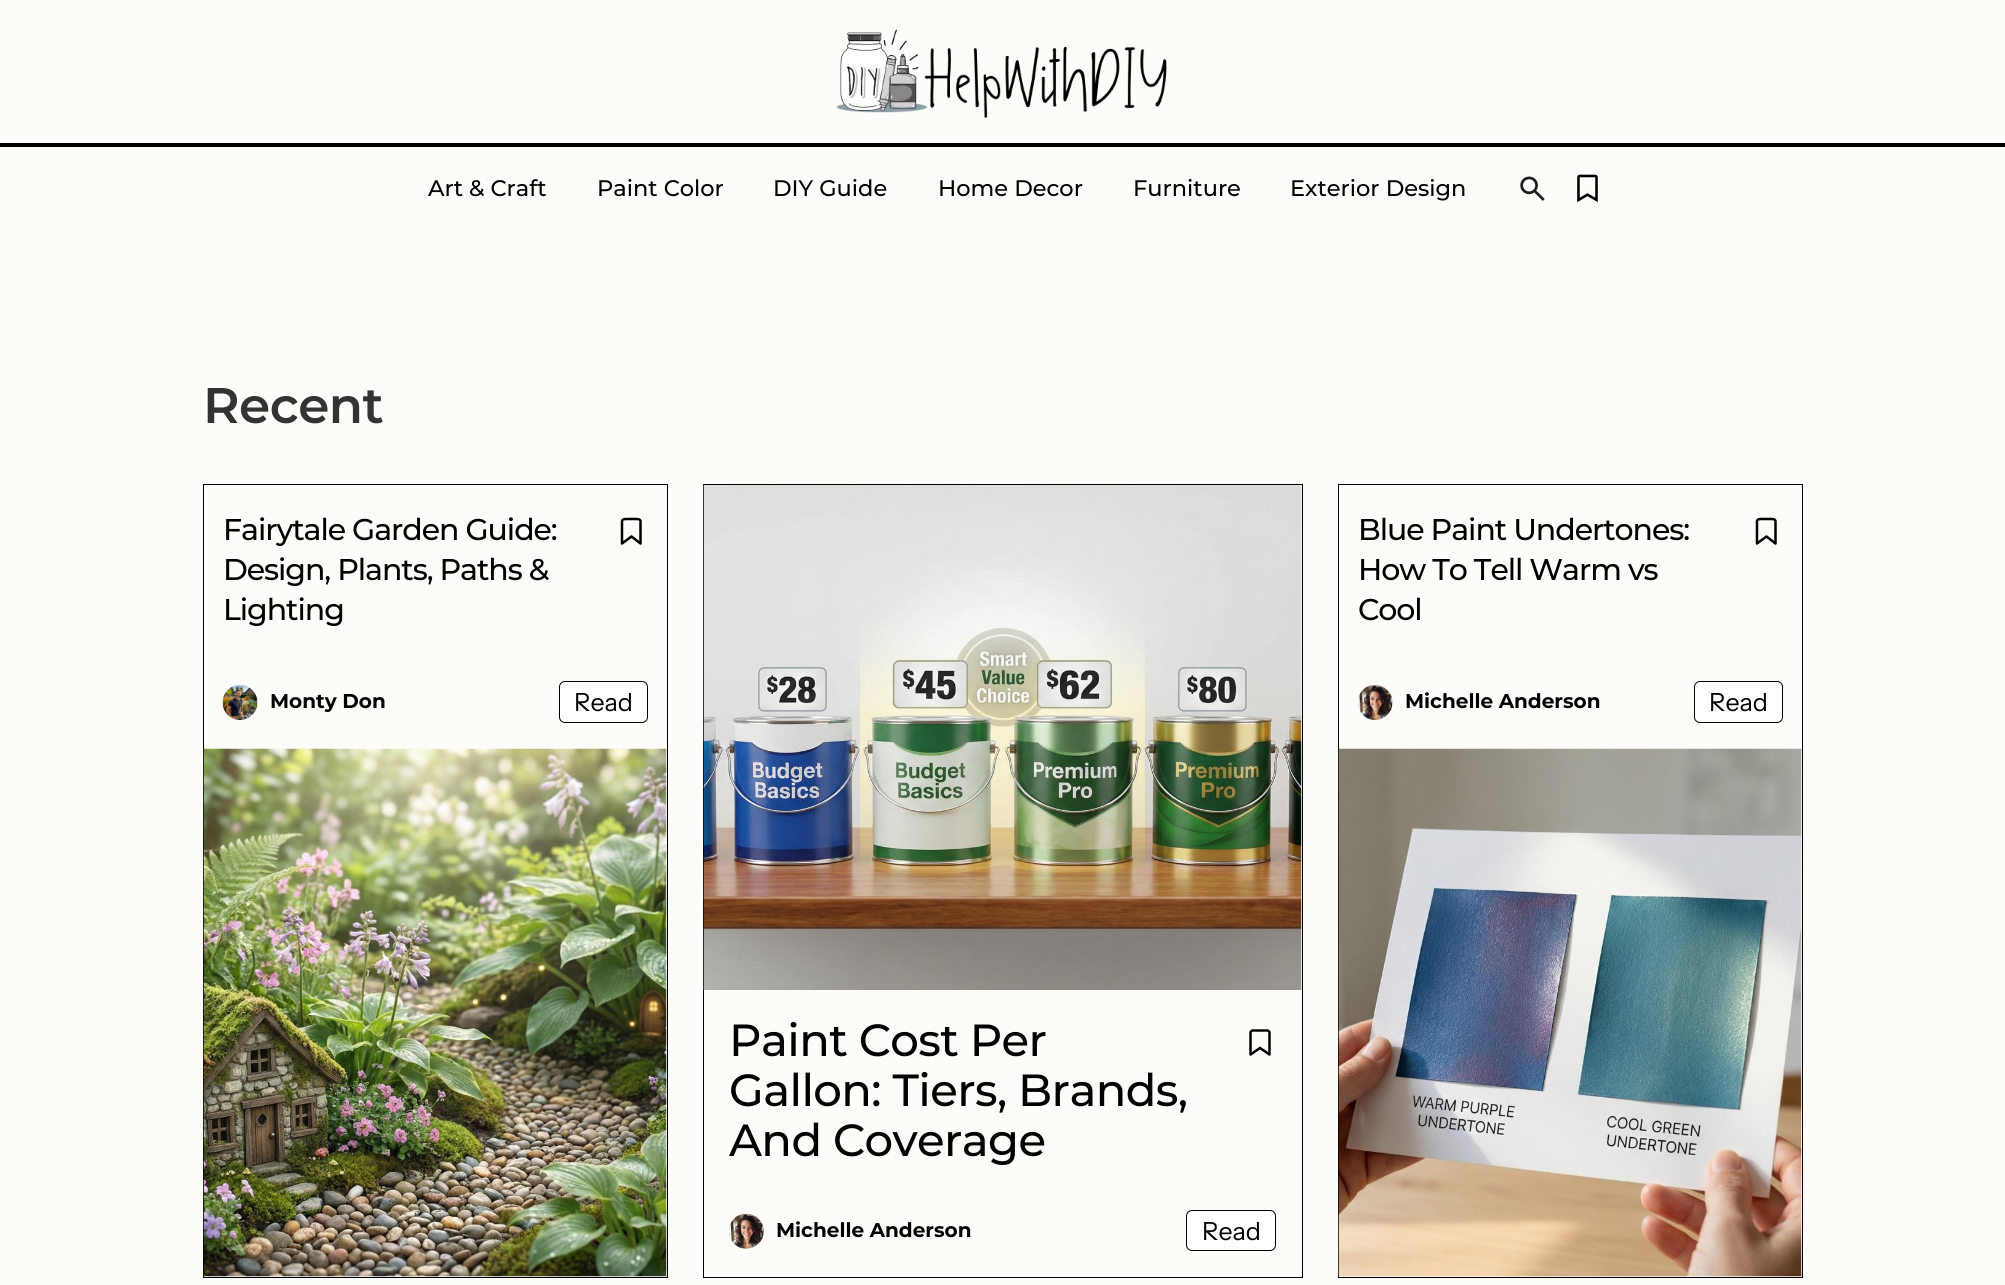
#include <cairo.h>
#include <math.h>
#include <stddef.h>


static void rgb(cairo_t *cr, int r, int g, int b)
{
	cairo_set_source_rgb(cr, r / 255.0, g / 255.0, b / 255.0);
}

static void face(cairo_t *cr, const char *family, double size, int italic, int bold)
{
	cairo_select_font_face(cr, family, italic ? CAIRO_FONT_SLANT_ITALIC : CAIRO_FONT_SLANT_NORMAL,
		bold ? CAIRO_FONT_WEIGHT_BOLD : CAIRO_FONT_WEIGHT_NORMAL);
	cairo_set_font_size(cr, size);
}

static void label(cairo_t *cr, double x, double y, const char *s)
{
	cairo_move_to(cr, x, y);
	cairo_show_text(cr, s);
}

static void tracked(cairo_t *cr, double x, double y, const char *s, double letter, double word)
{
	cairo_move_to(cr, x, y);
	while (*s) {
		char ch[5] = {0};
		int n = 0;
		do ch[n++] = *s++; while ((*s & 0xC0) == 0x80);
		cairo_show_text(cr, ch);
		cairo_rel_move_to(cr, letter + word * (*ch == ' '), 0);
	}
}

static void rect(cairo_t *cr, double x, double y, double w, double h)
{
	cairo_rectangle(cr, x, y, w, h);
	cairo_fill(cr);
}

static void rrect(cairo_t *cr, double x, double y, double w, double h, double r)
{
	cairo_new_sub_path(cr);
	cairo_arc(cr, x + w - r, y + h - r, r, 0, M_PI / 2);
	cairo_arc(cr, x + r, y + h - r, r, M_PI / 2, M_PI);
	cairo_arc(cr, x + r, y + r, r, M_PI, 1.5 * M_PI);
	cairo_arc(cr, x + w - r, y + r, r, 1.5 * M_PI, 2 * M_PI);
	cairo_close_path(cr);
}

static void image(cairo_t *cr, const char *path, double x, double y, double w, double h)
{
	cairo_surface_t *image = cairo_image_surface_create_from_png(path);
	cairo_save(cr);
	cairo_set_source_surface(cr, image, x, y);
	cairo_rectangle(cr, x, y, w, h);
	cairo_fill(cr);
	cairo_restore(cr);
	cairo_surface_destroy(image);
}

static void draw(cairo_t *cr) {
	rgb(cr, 253, 252, 248);
	cairo_paint(cr);
	rgb(cr, 0, 0, 0);
	rect(cr, 0, 143, 2005, 4);
	image(cr, "image0.png", 836, 29, 331, 89);
	face(cr, "Montserrat Medium", 22.5, 0, 0);
	label(cr, 428, 196, "Art & Craft");
	label(cr, 597, 196, "Paint Color");
	label(cr, 773, 196, "DIY Guide");
	label(cr, 938, 196, "Home Decor");
	label(cr, 1133, 196, "Furniture");
	label(cr, 1290, 196, "Exterior Design");
	image(cr, "image1.png", 1520, 176, 25, 25);
	image(cr, "image2.png", 1577, 174, 21, 29);
	face(cr, "Montserrat SemiBold", 50, 0, 0);
	rgb(cr, 51, 51, 51);
	tracked(cr, 203, 423, "Recent", -0.5, 0);
	cairo_rectangle(cr, 203.5, 484.5, 464, 793);
	rgb(cr, 0, 0, 0);
	cairo_set_line_width(cr, 1);
	cairo_stroke(cr);
	face(cr, "Montserrat Medium", 30, 0, 0);
	tracked(cr, 223, 540, "Fairytale Garden Guide:", -1.05, 0);
	tracked(cr, 223, 580, "Design, Plants, Paths &", -1.05, 0);
	tracked(cr, 223, 620, "Lighting", -1.05, 0);
	cairo_new_path(cr);
	cairo_move_to(cr, 640.5, 543.5);
	cairo_line_to(cr, 631.5, 536.5);
	cairo_line_to(cr, 622, 543.5);
	cairo_line_to(cr, 622, 521);
	cairo_curve_to(cr, 622.5, 519, 625, 519, 626.5, 519);
	cairo_line_to(cr, 636, 519);
	cairo_curve_to(cr, 637.5, 519, 640, 519, 640.5, 521);
	cairo_close_path(cr);
	cairo_set_line_width(cr, 2.5);
	cairo_set_line_cap(cr, CAIRO_LINE_CAP_ROUND);
	cairo_set_line_join(cr, CAIRO_LINE_JOIN_ROUND);
	cairo_stroke(cr);
	image(cr, "image3.png", 222, 685, 36, 35);
	face(cr, "Montserrat", 20, 0, 1);
	label(cr, 270, 708, "Monty Don");
	rgb(cr, 255, 255, 255);
	rrect(cr, 559.5, 681.5, 88, 41, 5.5);
	cairo_fill_preserve(cr);
	rgb(cr, 0, 0, 0);
	cairo_set_line_width(cr, 1);
	cairo_set_line_cap(cr, CAIRO_LINE_CAP_BUTT);
	cairo_set_line_join(cr, CAIRO_LINE_JOIN_MITER);
	cairo_stroke(cr);
	face(cr, "Instrument Sans", 25, 0, 0);
	label(cr, 574, 711, "Read");
	image(cr, "image4.png", 203, 748, 464, 529);
	cairo_rectangle(cr, 1338.5, 484.5, 464, 793);
	cairo_stroke(cr);
	face(cr, "Montserrat Medium", 30, 0, 0);
	tracked(cr, 1358, 540, "Blue Paint Undertones:", -1.05, 0);
	tracked(cr, 1358, 580, "How To Tell Warm vs", -1.05, 0);
	tracked(cr, 1358, 620, "Cool", -1.05, 0);
	cairo_new_path(cr);
	cairo_move_to(cr, 1775.5, 543.5);
	cairo_line_to(cr, 1766.5, 536.5);
	cairo_line_to(cr, 1757, 543.5);
	cairo_line_to(cr, 1757, 521);
	cairo_curve_to(cr, 1757.5, 519, 1760, 519, 1761.5, 519);
	cairo_line_to(cr, 1771, 519);
	cairo_curve_to(cr, 1772.5, 519, 1775, 519, 1775.5, 521);
	cairo_close_path(cr);
	cairo_set_line_width(cr, 2.5);
	cairo_set_line_cap(cr, CAIRO_LINE_CAP_ROUND);
	cairo_set_line_join(cr, CAIRO_LINE_JOIN_ROUND);
	cairo_stroke(cr);
	image(cr, "image5.png", 1357, 685, 36, 35);
	face(cr, "Montserrat", 20, 0, 1);
	label(cr, 1405, 708, "Michelle Anderson");
	rgb(cr, 255, 255, 255);
	rrect(cr, 1694.5, 681.5, 88, 41, 5.5);
	cairo_fill_preserve(cr);
	rgb(cr, 0, 0, 0);
	cairo_set_line_width(cr, 1);
	cairo_set_line_cap(cr, CAIRO_LINE_CAP_BUTT);
	cairo_set_line_join(cr, CAIRO_LINE_JOIN_MITER);
	cairo_stroke(cr);
	face(cr, "Instrument Sans", 25, 0, 0);
	label(cr, 1709, 711, "Read");
	image(cr, "image6.png", 1338, 748, 464, 529);
	cairo_rectangle(cr, 703.5, 484.5, 599, 793);
	cairo_stroke(cr);
	image(cr, "image7.png", 703, 485, 599, 505);
	face(cr, "Montserrat Medium", 45, 0, 0);
	tracked(cr, 729, 1056, "Paint Cost Per", -0.6, 0);
	tracked(cr, 729, 1106, "Gallon: Tiers, Brands,", -0.6, 0);
	tracked(cr, 729, 1156, "And Coverage", -0.6, 0);
	cairo_new_path(cr);
	cairo_move_to(cr, 1269.5, 1054.5);
	cairo_line_to(cr, 1260, 1048);
	cairo_line_to(cr, 1250.5, 1054.5);
	cairo_line_to(cr, 1250.5, 1032.5);
	cairo_curve_to(cr, 1251, 1030, 1253.5, 1030.5, 1255.5, 1030.5);
	cairo_line_to(cr, 1264.5, 1030.5);
	cairo_curve_to(cr, 1266.5, 1030.5, 1269, 1030, 1269.5, 1032.5);
	cairo_close_path(cr);
	cairo_set_line_width(cr, 2.5);
	cairo_set_line_cap(cr, CAIRO_LINE_CAP_ROUND);
	cairo_set_line_join(cr, CAIRO_LINE_JOIN_ROUND);
	cairo_stroke(cr);
	image(cr, "image8.png", 729, 1213, 35, 36);
	face(cr, "Montserrat", 20, 0, 1);
	label(cr, 776, 1237, "Michelle Anderson");
	rgb(cr, 255, 255, 255);
	rrect(cr, 1186.5, 1210.5, 89, 40, 5.5);
	cairo_fill_preserve(cr);
	rgb(cr, 0, 0, 0);
	cairo_set_line_width(cr, 1);
	cairo_set_line_cap(cr, CAIRO_LINE_CAP_BUTT);
	cairo_set_line_join(cr, CAIRO_LINE_JOIN_MITER);
	cairo_stroke(cr);
	face(cr, "Instrument Sans", 25, 0, 0);
	label(cr, 1202, 1240, "Read");
}

int main(void) {
	cairo_surface_t *surface = cairo_image_surface_create(CAIRO_FORMAT_RGB24, 2005, 1285);
	cairo_t *cr = cairo_create(surface);
	cairo_font_options_t *options = cairo_font_options_create();
	cairo_font_options_set_hint_metrics(options, CAIRO_HINT_METRICS_OFF);
	cairo_font_options_set_hint_style(options, CAIRO_HINT_STYLE_NONE);
	cairo_set_font_options(cr, options);
	cairo_set_miter_limit(cr, 4);
	draw(cr);
	cairo_surface_write_to_png(surface, "render.png");
	cairo_font_options_destroy(options);
	cairo_destroy(cr);
	cairo_surface_destroy(surface);
	return 0;
}
